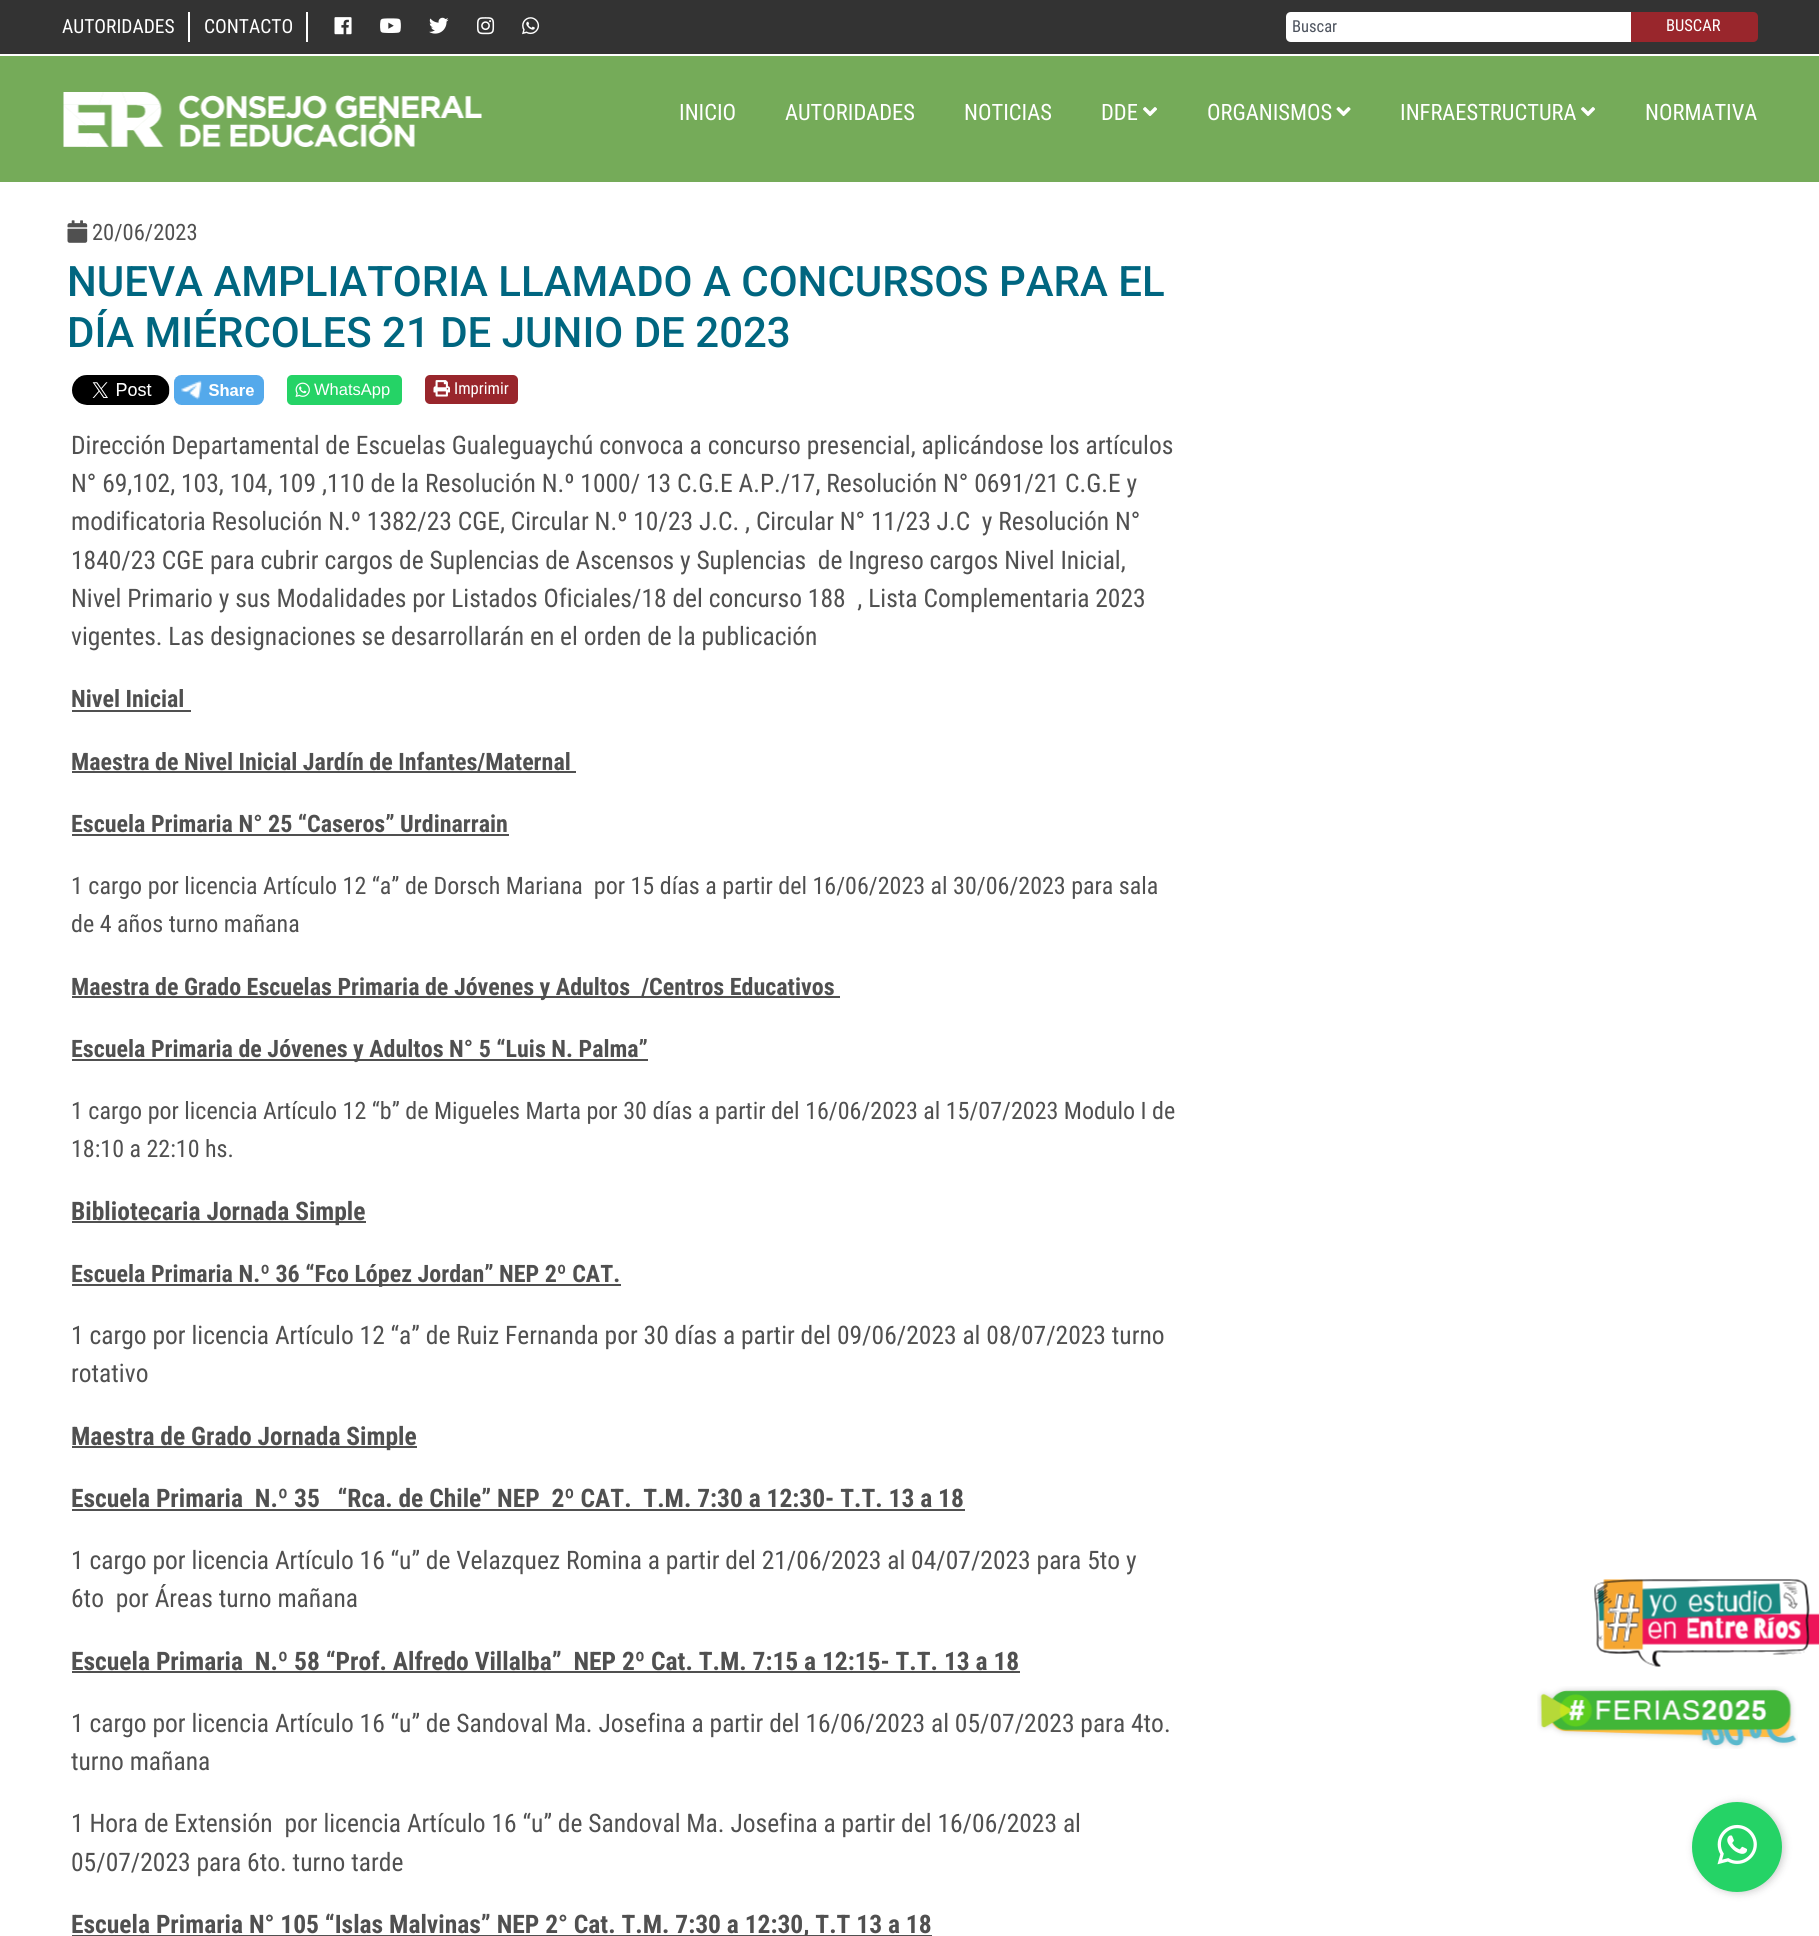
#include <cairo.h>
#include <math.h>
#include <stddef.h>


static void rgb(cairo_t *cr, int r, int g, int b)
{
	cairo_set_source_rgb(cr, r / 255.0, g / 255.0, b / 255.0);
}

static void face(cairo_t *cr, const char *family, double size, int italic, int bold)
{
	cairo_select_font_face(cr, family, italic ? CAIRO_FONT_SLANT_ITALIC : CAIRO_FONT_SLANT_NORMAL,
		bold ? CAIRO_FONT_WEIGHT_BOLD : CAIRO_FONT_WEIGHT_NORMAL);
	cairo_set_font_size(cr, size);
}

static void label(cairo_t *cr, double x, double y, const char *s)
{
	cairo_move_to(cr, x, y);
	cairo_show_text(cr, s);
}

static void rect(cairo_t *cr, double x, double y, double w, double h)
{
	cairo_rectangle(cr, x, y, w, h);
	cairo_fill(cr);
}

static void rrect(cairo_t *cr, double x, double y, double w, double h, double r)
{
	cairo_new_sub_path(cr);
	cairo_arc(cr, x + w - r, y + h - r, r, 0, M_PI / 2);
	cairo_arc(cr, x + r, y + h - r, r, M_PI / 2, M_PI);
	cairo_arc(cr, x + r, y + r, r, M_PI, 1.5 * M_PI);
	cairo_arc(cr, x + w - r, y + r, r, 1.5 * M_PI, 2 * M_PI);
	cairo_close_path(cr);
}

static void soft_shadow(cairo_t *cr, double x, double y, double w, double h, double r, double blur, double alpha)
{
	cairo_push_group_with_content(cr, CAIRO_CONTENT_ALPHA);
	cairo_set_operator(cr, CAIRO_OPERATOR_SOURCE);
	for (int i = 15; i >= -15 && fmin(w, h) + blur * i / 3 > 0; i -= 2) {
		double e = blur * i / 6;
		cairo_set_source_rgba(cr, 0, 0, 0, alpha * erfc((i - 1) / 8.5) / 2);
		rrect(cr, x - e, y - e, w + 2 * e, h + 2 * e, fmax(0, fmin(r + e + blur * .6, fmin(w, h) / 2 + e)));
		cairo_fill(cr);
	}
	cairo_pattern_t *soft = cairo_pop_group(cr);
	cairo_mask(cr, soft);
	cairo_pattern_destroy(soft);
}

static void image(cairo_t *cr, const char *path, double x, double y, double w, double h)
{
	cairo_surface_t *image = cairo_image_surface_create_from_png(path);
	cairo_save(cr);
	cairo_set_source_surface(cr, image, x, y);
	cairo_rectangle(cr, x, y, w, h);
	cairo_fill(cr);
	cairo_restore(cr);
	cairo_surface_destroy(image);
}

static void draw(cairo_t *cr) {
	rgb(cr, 255, 255, 255);
	cairo_paint(cr);
	rgb(cr, 51, 51, 51);
	rect(cr, 0, 0, 1819, 54);
	rgb(cr, 255, 255, 255);
	rect(cr, 188, 12, 2, 30);
	face(cr, "Roboto Condensed", 19.5, 0, 0);
	label(cr, 62, 33, "AUTORIDADES");
	rect(cr, 306, 12, 2, 30);
	label(cr, 204, 33, "CONTACTO");
	image(cr, "image0.png", 334, 17, 18, 18);
	image(cr, "image1.png", 380, 18, 21, 15);
	image(cr, "image2.png", 429, 17, 20, 17);
	image(cr, "image3.png", 477, 17, 18, 18);
	image(cr, "image4.png", 522, 17, 18, 18);
	cairo_new_path(cr);
	cairo_move_to(cr, 1291, 12);
	cairo_line_to(cr, 1631, 12);
	cairo_line_to(cr, 1631, 42);
	cairo_line_to(cr, 1291, 42);
	cairo_curve_to(cr, 1288, 42, 1286, 40, 1286, 37);
	cairo_line_to(cr, 1286, 17);
	cairo_curve_to(cr, 1286, 14, 1288, 12, 1291, 12);
	cairo_close_path(cr);
	cairo_fill(cr);
	face(cr, "Roboto Condensed", 16.5, 0, 0);
	rgb(cr, 77, 83, 94);
	label(cr, 1292, 32, "Buscar");
	rgb(cr, 153, 38, 44);
	cairo_new_path(cr);
	cairo_move_to(cr, 1631, 12);
	cairo_line_to(cr, 1753, 12);
	cairo_curve_to(cr, 1756, 12, 1758, 14, 1758, 17);
	cairo_line_to(cr, 1758, 37);
	cairo_curve_to(cr, 1758, 40, 1756, 42, 1753, 42);
	cairo_line_to(cr, 1631, 42);
	cairo_close_path(cr);
	cairo_fill(cr);
	rgb(cr, 255, 255, 255);
	label(cr, 1666, 31, "BUSCAR");
	rgb(cr, 117, 171, 89);
	rect(cr, 0, 56, 1819, 126);
	image(cr, "image5.png", 63, 92, 419, 55);
	face(cr, "Roboto Condensed", 22.5, 0, 0);
	rgb(cr, 255, 255, 255);
	label(cr, 679, 120, "INICIO");
	label(cr, 785, 120, "AUTORIDADES");
	label(cr, 964, 120, "NOTICIAS");
	label(cr, 1101, 120, "DDE");
	image(cr, "image6.png", 1143, 107, 14, 9);
	label(cr, 1207, 120, "ORGANISMOS");
	image(cr, "image7.png", 1336, 107, 15, 10);
	label(cr, 1400, 120, "INFRAESTRUCTURA");
	image(cr, "image6.png", 1581, 107, 14, 9);
	label(cr, 1645, 120, "NORMATIVA");
	image(cr, "image8.png", 67, 220, 21, 23);
	rgb(cr, 80, 80, 80);
	label(cr, 92, 240, "20/06/2023");
	face(cr, "Roboto Medium", 42, 0, 0);
	rgb(cr, 0, 102, 128);
	label(cr, 67, 296, "NUEVA AMPLIATORIA LLAMADO A CONCURSOS PARA EL");
	label(cr, 67, 347, "DÍA MIÉRCOLES 21 DE JUNIO DE 2023");
	image(cr, "image9.png", 72, 375, 98, 30);
	image(cr, "image10.png", 174, 375, 90, 30);
	rgb(cr, 37, 211, 102);
	rrect(cr, 287, 375, 115, 30, 5);
	cairo_fill(cr);
	image(cr, "image11.png", 295, 382, 15, 15);
	face(cr, "Liberation Sans", 16.5, 0, 0);
	rgb(cr, 255, 255, 255);
	label(cr, 314, 395, "WhatsApp");
	rgb(cr, 153, 38, 44);
	rrect(cr, 425, 375, 93, 29, 5);
	cairo_fill(cr);
	image(cr, "image12.png", 433, 380, 17, 17);
	face(cr, "Roboto Condensed", 16.5, 0, 0);
	rgb(cr, 255, 255, 255);
	label(cr, 454, 394, "Imprimir");
	face(cr, "Roboto Condensed", 25.5, 0, 0);
	rgb(cr, 80, 80, 80);
	label(cr, 71, 454, "Dirección Departamental de Escuelas Gualeguaychú convoca a concurso presencial, aplicándose los artículos");
	label(cr, 71, 492, "N° 69,102, 103, 104, 109 ,110 de la Resolución N.º 1000/ 13 C.G.E A.P./17, Resolución N° 0691/21 C.G.E y");
	label(cr, 71, 530, "modificatoria Resolución N.º 1382/23 CGE, Circular N.º 10/23 J.C. , Circular N° 11/23 J.C  y Resolución N°");
	label(cr, 71, 569, "1840/23 CGE para cubrir cargos de Suplencias de Ascensos y Suplencias  de Ingreso cargos Nivel Inicial,");
	label(cr, 71, 607, "Nivel Primario y sus Modalidades por Listados Oficiales/18 del concurso 188  , Lista Complementaria 2023");
	label(cr, 71, 645, "vigentes. Las designaciones se desarrollarán en el orden de la publicación");
	face(cr, "Roboto Condensed", 24, 0, 1);
	label(cr, 71, 707, "Nivel Inicial");
	rect(cr, 72, 710, 119, 2);
	rect(cr, 72, 771, 504, 2);
	label(cr, 71, 770, "Maestra de Nivel Inicial Jardín de Infantes/Maternal");
	label(cr, 71, 832, "Escuela Primaria N° 25 “Caseros” Urdinarrain");
	rect(cr, 72, 834, 437, 2);
	face(cr, "Roboto Condensed", 24, 0, 0);
	label(cr, 71, 894, "1 cargo por licencia Artículo 12 “a” de Dorsch Mariana  por 15 días a partir del 16/06/2023 al 30/06/2023 para sala");
	label(cr, 71, 932, "de 4 años turno mañana");
	rect(cr, 72, 996, 768, 2);
	face(cr, "Roboto Condensed", 24, 0, 1);
	label(cr, 71, 995, "Maestra de Grado Escuelas Primaria de Jóvenes y Adultos  /Centros Educativos");
	rect(cr, 72, 1059, 576, 2);
	label(cr, 71, 1057, "Escuela Primaria de Jóvenes y Adultos N° 5 “Luis N. Palma”");
	face(cr, "Roboto Condensed", 24, 0, 0);
	label(cr, 71, 1119, "1 cargo por licencia Artículo 12 “b” de Migueles Marta por 30 días a partir del 16/06/2023 al 15/07/2023 Modulo I de");
	label(cr, 71, 1157, "18:10 a 22:10 hs.");
	rect(cr, 72, 1221, 294, 2);
	face(cr, "Roboto Condensed", 25.5, 0, 1);
	label(cr, 71, 1220, "Bibliotecaria Jornada Simple");
	rect(cr, 72, 1284, 549, 2);
	face(cr, "Roboto Condensed", 24, 0, 1);
	label(cr, 71, 1282, "Escuela Primaria N.º 36 “Fco López Jordan” NEP 2º CAT.");
	face(cr, "Roboto Condensed", 25.5, 0, 0);
	label(cr, 71, 1344, "1 cargo por licencia Artículo 12 “a” de Ruiz Fernanda por 30 días a partir del 09/06/2023 al 08/07/2023 turno");
	label(cr, 71, 1382, "rotativo");
	rect(cr, 72, 1446, 345, 2);
	face(cr, "Roboto Condensed", 25.5, 0, 1);
	label(cr, 71, 1445, "Maestra de Grado Jornada Simple");
	label(cr, 71, 1507, "Escuela Primaria  N.º 35   “Rca. de Chile” NEP  2º CAT.  T.M. 7:30 a 12:30- T.T. 13 a 18");
	rect(cr, 72, 1509, 893, 2);
	face(cr, "Roboto Condensed", 25.5, 0, 0);
	label(cr, 71, 1569, "1 cargo por licencia Artículo 16 “u” de Velazquez Romina a partir del 21/06/2023 al 04/07/2023 para 5to y");
	label(cr, 71, 1607, "6to  por Áreas turno mañana");
	face(cr, "Roboto Condensed", 25.5, 0, 1);
	label(cr, 71, 1670, "Escuela Primaria  N.º 58 “Prof. Alfredo Villalba”  NEP 2º Cat. T.M. 7:15 a 12:15- T.T. 13 a 18");
	rect(cr, 72, 1671, 948, 2);
	face(cr, "Roboto Condensed", 25.5, 0, 0);
	label(cr, 71, 1732, "1 cargo por licencia Artículo 16 “u” de Sandoval Ma. Josefina a partir del 16/06/2023 al 05/07/2023 para 4to.");
	label(cr, 71, 1770, "turno mañana");
	label(cr, 71, 1832, "1 Hora de Extensión  por licencia Artículo 16 “u” de Sandoval Ma. Josefina a partir del 16/06/2023 al");
	label(cr, 71, 1871, "05/07/2023 para 6to. turno tarde");
	rect(cr, 72, 1935, 860, 1);
	face(cr, "Roboto Condensed", 25.5, 0, 1);
	label(cr, 71, 1933, "Escuela Primaria N° 105 “Islas Malvinas” NEP 2° Cat. T.M. 7:30 a 12:30, T.T 13 a 18");
	image(cr, "image13.png", 1594, 1579, 225, 88);
	image(cr, "image14.png", 1537, 1686, 261, 63);
	rgb(cr, 0, 0, 0);
	soft_shadow(cr, 1694, 1803, 90, 90, 45, 4, 0.2);
	rgb(cr, 37, 211, 102);
	cairo_arc(cr, 1737, 1847, 45, 0, 2 * M_PI);
	cairo_fill(cr);
	image(cr, "image15.png", 1717, 1824, 40, 41);
}

int main(void) {
	cairo_surface_t *surface = cairo_image_surface_create(CAIRO_FORMAT_RGB24, 1819, 1936);
	cairo_t *cr = cairo_create(surface);
	cairo_font_options_t *options = cairo_font_options_create();
	cairo_font_options_set_hint_metrics(options, CAIRO_HINT_METRICS_OFF);
	cairo_font_options_set_hint_style(options, CAIRO_HINT_STYLE_NONE);
	cairo_set_font_options(cr, options);
	cairo_set_miter_limit(cr, 4);
	draw(cr);
	cairo_surface_write_to_png(surface, "render.png");
	cairo_font_options_destroy(options);
	cairo_destroy(cr);
	cairo_surface_destroy(surface);
	return 0;
}
